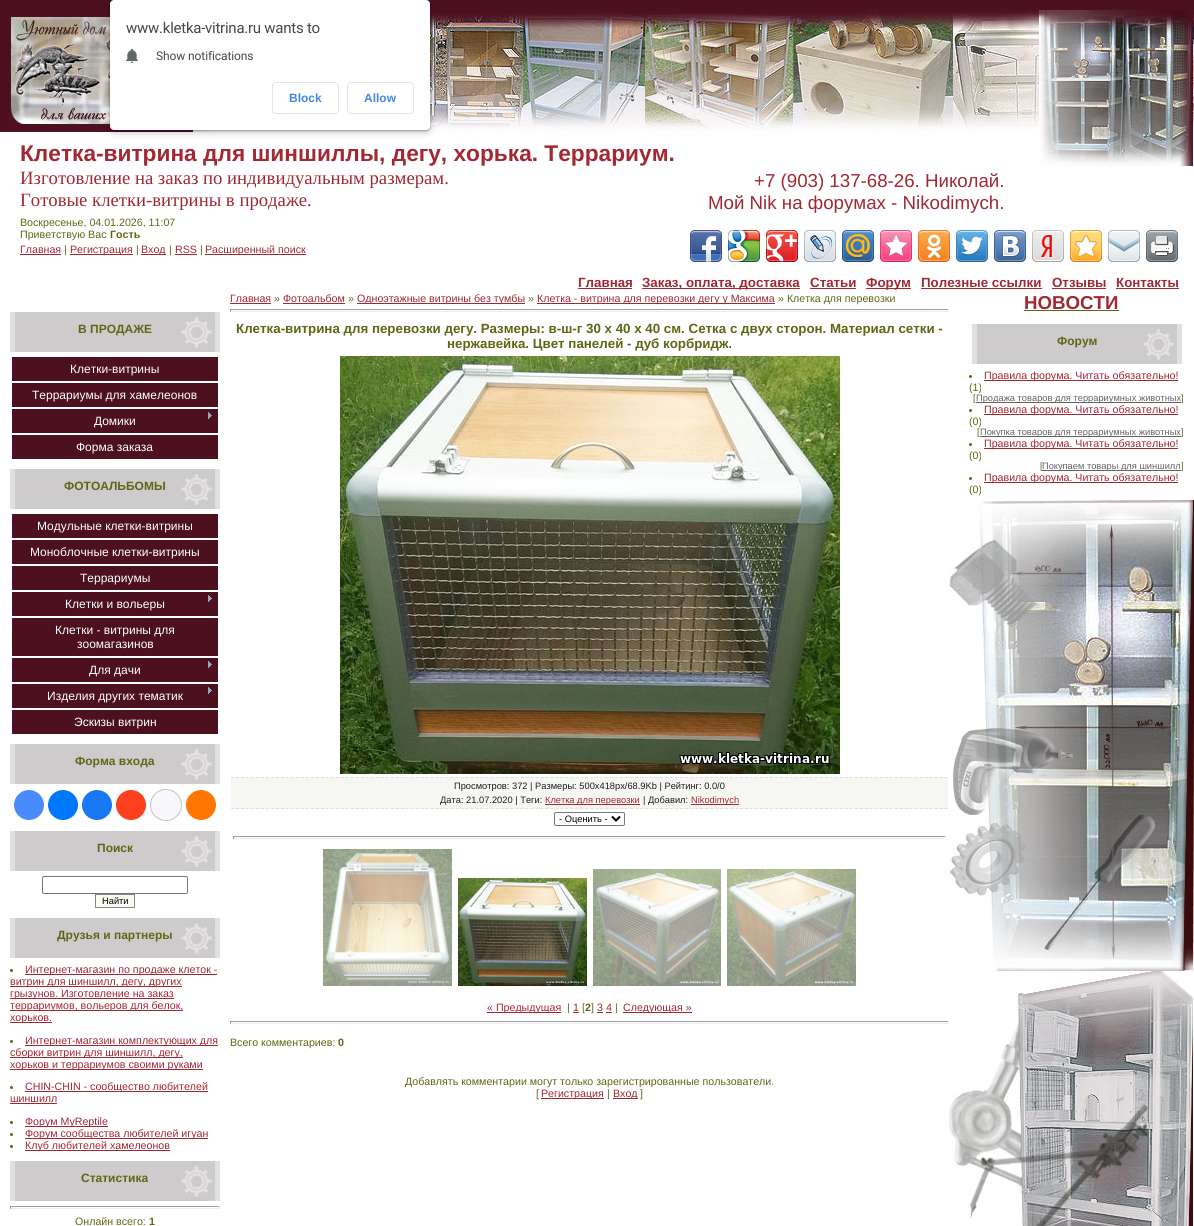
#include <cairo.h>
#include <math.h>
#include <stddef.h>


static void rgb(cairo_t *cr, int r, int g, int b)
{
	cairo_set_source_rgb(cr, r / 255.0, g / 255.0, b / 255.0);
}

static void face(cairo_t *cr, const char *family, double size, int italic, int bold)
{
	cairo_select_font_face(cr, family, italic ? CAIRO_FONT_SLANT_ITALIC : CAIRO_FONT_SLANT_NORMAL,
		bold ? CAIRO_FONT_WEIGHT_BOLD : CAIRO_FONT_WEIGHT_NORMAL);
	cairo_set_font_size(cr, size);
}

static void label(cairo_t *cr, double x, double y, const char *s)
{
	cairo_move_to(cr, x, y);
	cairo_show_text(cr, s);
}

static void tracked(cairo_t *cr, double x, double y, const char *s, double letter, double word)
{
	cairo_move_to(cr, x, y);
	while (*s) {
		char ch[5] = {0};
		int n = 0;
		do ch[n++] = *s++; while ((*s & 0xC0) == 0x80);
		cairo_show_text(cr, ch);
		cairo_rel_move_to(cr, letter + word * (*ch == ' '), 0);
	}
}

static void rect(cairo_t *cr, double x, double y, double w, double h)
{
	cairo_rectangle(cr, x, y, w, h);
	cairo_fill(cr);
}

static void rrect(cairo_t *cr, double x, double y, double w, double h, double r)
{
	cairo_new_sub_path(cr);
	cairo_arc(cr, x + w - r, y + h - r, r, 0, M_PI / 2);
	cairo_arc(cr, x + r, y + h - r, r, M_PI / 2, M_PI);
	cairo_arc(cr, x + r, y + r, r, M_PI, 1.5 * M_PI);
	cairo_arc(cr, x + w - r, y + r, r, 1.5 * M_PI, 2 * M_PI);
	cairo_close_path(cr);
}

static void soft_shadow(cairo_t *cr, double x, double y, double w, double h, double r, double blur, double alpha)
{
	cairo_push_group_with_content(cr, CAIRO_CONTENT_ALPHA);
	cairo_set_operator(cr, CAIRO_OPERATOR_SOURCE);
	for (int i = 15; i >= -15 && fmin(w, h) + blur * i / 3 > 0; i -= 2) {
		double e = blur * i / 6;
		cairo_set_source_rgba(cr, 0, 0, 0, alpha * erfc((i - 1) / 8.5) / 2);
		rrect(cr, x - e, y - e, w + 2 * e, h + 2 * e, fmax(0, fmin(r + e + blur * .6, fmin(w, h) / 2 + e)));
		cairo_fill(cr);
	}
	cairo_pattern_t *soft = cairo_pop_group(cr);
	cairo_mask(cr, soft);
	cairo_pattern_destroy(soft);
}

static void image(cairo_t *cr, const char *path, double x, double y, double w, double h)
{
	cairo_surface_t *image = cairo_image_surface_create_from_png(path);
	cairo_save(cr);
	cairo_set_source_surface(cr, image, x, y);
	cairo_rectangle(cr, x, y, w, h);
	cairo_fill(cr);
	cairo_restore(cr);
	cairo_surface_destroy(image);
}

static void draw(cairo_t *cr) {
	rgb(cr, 255, 255, 255);
	cairo_paint(cr);
	image(cr, "image1.png", 193, 10, 1001, 122);
	rgb(cr, 77, 16, 31);
	rect(cr, 0, 0, 1194, 10);
	image(cr, "image2.png", 0, 10, 193, 122);
	rgb(cr, 0, 0, 0);
	soft_shadow(cr, 108, 0, 324, 134, 6, 3, 0.15);
	soft_shadow(cr, 110, 1, 320, 130, 4, 1, 0.3);
	rgb(cr, 255, 255, 255);
	rrect(cr, 110, 0, 320, 130, 4);
	cairo_fill(cr);
	face(cr, "Roboto", 15, 0, 0);
	rgb(cr, 67, 71, 73);
	tracked(cr, 126, 33, "www.kletka-vitrina.ru wants to", -0.25, 0);
	image(cr, "image0.png", 126, 49, 12, 14);
	face(cr, "Roboto", 12, 0, 0);
	tracked(cr, 156, 60, "Show notifications", -0.1, 0);
	rrect(cr, 272.5, 82.5, 66, 31, 3.5);
	rgb(cr, 228, 228, 228);
	cairo_set_line_width(cr, 1);
	cairo_stroke(cr);
	face(cr, "Liberation Sans", 12, 0, 1);
	rgb(cr, 64, 137, 232);
	label(cr, 289, 102, "Block");
	rrect(cr, 347.5, 82.5, 66, 31, 3.5);
	rgb(cr, 228, 228, 228);
	cairo_stroke(cr);
	rgb(cr, 64, 137, 232);
	label(cr, 364, 102, "Allow");
	image(cr, "image3.png", 1039, 10, 154, 156);
	face(cr, "Liberation Sans", 22.7, 0, 1);
	rgb(cr, 162, 40, 51);
	label(cr, 20, 161, "Клетка-витрина для шиншиллы, дегу, хорька. Террариум.");
	face(cr, "Liberation Serif", 18.7, 0, 0);
	label(cr, 20, 184, "Изготовление на заказ по индивидуальным размерам.");
	label(cr, 20, 206, "Готовые клетки-витрины в продаже.");
	face(cr, "Liberation Sans", 10.65, 0, 0);
	rgb(cr, 96, 102, 21);
	label(cr, 20, 226, "Воскресенье, 04.01.2026, 11:07");
	label(cr, 20, 238, "Приветствую Вас");
	face(cr, "Liberation Sans", 10.65, 0, 1);
	label(cr, 110, 238, "Гость");
	face(cr, "Liberation Sans", 10.65, 0, 0);
	rgb(cr, 162, 40, 51);
	label(cr, 20, 253, "Главная");
	rect(cr, 20, 254, 41, 1);
	rgb(cr, 96, 102, 21);
	label(cr, 64, 253, "|");
	rgb(cr, 162, 40, 51);
	rect(cr, 70, 254, 63, 1);
	label(cr, 70, 253, "Регистрация");
	rgb(cr, 96, 102, 21);
	label(cr, 136, 253, "|");
	rgb(cr, 162, 40, 51);
	rect(cr, 141, 254, 25, 1);
	label(cr, 141, 253, "Вход");
	rgb(cr, 96, 102, 21);
	label(cr, 169, 253, "|");
	rgb(cr, 162, 40, 51);
	label(cr, 175, 253, "RSS");
	rect(cr, 175, 254, 22, 1);
	rgb(cr, 96, 102, 21);
	label(cr, 200, 253, "|");
	rgb(cr, 162, 40, 51);
	rect(cr, 205, 254, 101, 1);
	label(cr, 205, 253, "Расширенный поиск");
	face(cr, "Liberation Sans", 18.7, 0, 0);
	label(cr, 754, 187, "+7 (903) 137-68-26. Николай.");
	label(cr, 708, 209, "Мой Nik на форумах - Nikodimych.");
	image(cr, "image4.png", 690, 230, 32, 32);
	image(cr, "image5.png", 728, 230, 32, 32);
	image(cr, "image6.png", 766, 230, 32, 32);
	image(cr, "image7.png", 804, 230, 32, 32);
	image(cr, "image8.png", 842, 230, 32, 32);
	image(cr, "image9.png", 880, 230, 32, 32);
	image(cr, "image10.png", 918, 230, 32, 32);
	image(cr, "image11.png", 956, 230, 32, 32);
	image(cr, "image12.png", 994, 230, 32, 32);
	image(cr, "image13.png", 1032, 230, 32, 32);
	image(cr, "image14.png", 1070, 230, 32, 32);
	image(cr, "image15.png", 1108, 230, 32, 32);
	image(cr, "image16.png", 1146, 230, 32, 32);
	face(cr, "Liberation Sans", 13.33, 0, 1);
	label(cr, 578, 287, "Главная");
	rect(cr, 578, 288, 54, 1);
	rect(cr, 642, 288, 158, 1);
	label(cr, 642, 287, "Заказ, оплата, доставка");
	label(cr, 810, 287, "Статьи");
	rect(cr, 810, 288, 46, 1);
	rect(cr, 866, 288, 45, 1);
	label(cr, 866, 287, "Форум");
	label(cr, 921, 287, "Полезные ссылки");
	rect(cr, 921, 288, 121, 1);
	label(cr, 1052, 287, "Отзывы");
	rect(cr, 1052, 288, 54, 1);
	label(cr, 1116, 287, "Контакты");
	rect(cr, 1116, 288, 63, 1);
	rgb(cr, 224, 225, 220);
	rect(cr, 10, 312, 210, 40);
	image(cr, "image17.png", 15, 312, 200, 40);
	face(cr, "Liberation Sans", 12, 0, 1);
	rgb(cr, 96, 102, 21);
	label(cr, 78, 333, "В ПРОДАЖЕ");
	rgb(cr, 77, 16, 31);
	rect(cr, 12, 357, 206, 24);
	face(cr, "Liberation Sans", 12, 0, 0);
	rgb(cr, 255, 255, 255);
	label(cr, 70, 373, "Клетки-витрины");
	rgb(cr, 77, 16, 31);
	rect(cr, 12, 383, 206, 24);
	rgb(cr, 255, 255, 255);
	label(cr, 32, 399, "Террариумы для хамелеонов");
	rgb(cr, 77, 16, 31);
	rect(cr, 12, 409, 206, 24);
	rgb(cr, 255, 255, 255);
	label(cr, 94, 425, "Домики");
	image(cr, "image18.png", 208, 412, 4, 7);
	rgb(cr, 77, 16, 31);
	rect(cr, 12, 435, 206, 24);
	rgb(cr, 255, 255, 255);
	label(cr, 76, 451, "Форма заказа");
	rgb(cr, 224, 225, 220);
	rect(cr, 10, 469, 210, 40);
	image(cr, "image17.png", 15, 469, 200, 40);
	face(cr, "Liberation Sans", 12, 0, 1);
	rgb(cr, 96, 102, 21);
	label(cr, 64, 490, "ФОТОАЛЬБОМЫ");
	rgb(cr, 77, 16, 31);
	rect(cr, 12, 514, 206, 24);
	face(cr, "Liberation Sans", 12, 0, 0);
	rgb(cr, 255, 255, 255);
	label(cr, 37, 530, "Модульные клетки-витрины");
	rgb(cr, 77, 16, 31);
	rect(cr, 12, 540, 206, 24);
	rgb(cr, 255, 255, 255);
	label(cr, 30, 556, "Моноблочные клетки-витрины");
	rgb(cr, 77, 16, 31);
	rect(cr, 12, 566, 206, 24);
	rgb(cr, 255, 255, 255);
	label(cr, 80, 582, "Террариумы");
	rgb(cr, 77, 16, 31);
	rect(cr, 12, 592, 206, 24);
	rgb(cr, 255, 255, 255);
	label(cr, 65, 608, "Клетки и вольеры");
	image(cr, "image18.png", 208, 595, 4, 7);
	rgb(cr, 77, 16, 31);
	rect(cr, 12, 618, 206, 38);
	rgb(cr, 255, 255, 255);
	label(cr, 55, 634, "Клетки - витрины для");
	label(cr, 77, 648, "зоомагазинов");
	rgb(cr, 77, 16, 31);
	rect(cr, 12, 658, 206, 24);
	rgb(cr, 255, 255, 255);
	label(cr, 89, 674, "Для дачи");
	image(cr, "image18.png", 208, 661, 4, 7);
	rgb(cr, 77, 16, 31);
	rect(cr, 12, 684, 206, 24);
	rgb(cr, 255, 255, 255);
	label(cr, 47, 700, "Изделия других тематик");
	image(cr, "image18.png", 208, 687, 4, 7);
	rgb(cr, 77, 16, 31);
	rect(cr, 12, 710, 206, 24);
	rgb(cr, 255, 255, 255);
	label(cr, 74, 726, "Эскизы витрин");
	rgb(cr, 224, 225, 220);
	rect(cr, 10, 744, 210, 40);
	image(cr, "image17.png", 15, 744, 200, 40);
	face(cr, "Liberation Sans", 12, 0, 1);
	rgb(cr, 96, 102, 21);
	label(cr, 75, 765, "Форма входа");
	rgb(cr, 73, 139, 250);
	cairo_new_path(cr);
	cairo_arc(cr, 29, 805, 15, 0, 2 * M_PI);
	cairo_fill(cr);
	rgb(cr, 0, 119, 255);
	cairo_arc(cr, 63, 805, 15, 0, 2 * M_PI);
	cairo_fill(cr);
	rgb(cr, 24, 119, 242);
	cairo_arc(cr, 97, 805, 15, 0, 2 * M_PI);
	cairo_fill(cr);
	rgb(cr, 252, 63, 29);
	cairo_arc(cr, 131, 805, 15, 0, 2 * M_PI);
	cairo_fill(cr);
	rgb(cr, 248, 248, 252);
	cairo_arc(cr, 166, 805, 15.5, 0, 2 * M_PI);
	cairo_fill_preserve(cr);
	rgb(cr, 196, 196, 196);
	cairo_stroke(cr);
	rgb(cr, 255, 119, 0);
	cairo_arc(cr, 201, 805, 15, 0, 2 * M_PI);
	cairo_fill(cr);
	rgb(cr, 224, 225, 220);
	rect(cr, 10, 831, 210, 40);
	image(cr, "image17.png", 15, 831, 200, 40);
	rgb(cr, 96, 102, 21);
	label(cr, 97, 852, "Поиск");
	rrect(cr, 42.5, 876.5, 145, 17, 1.5);
	rgb(cr, 118, 118, 118);
	cairo_stroke(cr);
	rgb(cr, 248, 251, 241);
	cairo_rectangle(cr, 95.5, 894.5, 39, 13);
	cairo_fill_preserve(cr);
	rgb(cr, 134, 136, 130);
	cairo_stroke(cr);
	face(cr, "Liberation Sans", 9.3, 0, 0);
	rgb(cr, 0, 0, 0);
	label(cr, 102, 904, "Найти");
	rgb(cr, 224, 225, 220);
	rect(cr, 10, 918, 210, 40);
	image(cr, "image17.png", 15, 918, 200, 40);
	face(cr, "Liberation Sans", 12, 0, 1);
	rgb(cr, 96, 102, 21);
	label(cr, 57, 939, "Друзья и партнеры");
	cairo_new_path(cr);
	cairo_arc(cr, 11.5, 970.5, 1.5, 0, 2 * M_PI);
	cairo_fill(cr);
	rgb(cr, 162, 40, 51);
	rect(cr, 25, 974, 192, 1);
	face(cr, "Liberation Sans", 10.65, 0, 0);
	label(cr, 25, 973, "Интернет-магазин по продаже клеток -");
	rect(cr, 10, 986, 172, 1);
	label(cr, 10, 985, "витрин для шиншилл, дегу, других");
	rect(cr, 10, 998, 164, 1);
	label(cr, 10, 997, "грызунов. Изготовление на заказ");
	rect(cr, 10, 1010, 173, 1);
	label(cr, 10, 1009, "террариумов, вольеров для белок,");
	rect(cr, 10, 1022, 42, 1);
	label(cr, 10, 1021, "хорьков.");
	rgb(cr, 96, 102, 21);
	cairo_new_path(cr);
	cairo_arc(cr, 11.5, 1041.5, 1.5, 0, 2 * M_PI);
	cairo_fill(cr);
	rgb(cr, 162, 40, 51);
	rect(cr, 25, 1045, 193, 1);
	label(cr, 25, 1044, "Интернет-магазин комплектующих для");
	rect(cr, 10, 1057, 173, 1);
	label(cr, 10, 1056, "сборки витрин для шиншилл, дегу,");
	rect(cr, 10, 1069, 193, 1);
	label(cr, 10, 1068, "хорьков и террариумов своими руками");
	rgb(cr, 96, 102, 21);
	cairo_new_path(cr);
	cairo_arc(cr, 11.5, 1087.5, 1.5, 0, 2 * M_PI);
	cairo_fill(cr);
	rgb(cr, 162, 40, 51);
	rect(cr, 25, 1091, 183, 1);
	label(cr, 25, 1090, "CHIN-CHIN - сообщество любителей");
	label(cr, 10, 1102, "шиншилл");
	rect(cr, 10, 1103, 47, 1);
	rgb(cr, 96, 102, 21);
	cairo_new_path(cr);
	cairo_arc(cr, 11.5, 1122.5, 1.5, 0, 2 * M_PI);
	cairo_fill(cr);
	rgb(cr, 162, 40, 51);
	rect(cr, 25, 1126, 83, 1);
	label(cr, 25, 1125, "Форум MyReptile");
	rgb(cr, 96, 102, 21);
	cairo_new_path(cr);
	cairo_arc(cr, 11.5, 1134.5, 1.5, 0, 2 * M_PI);
	cairo_fill(cr);
	rgb(cr, 162, 40, 51);
	rect(cr, 25, 1138, 183, 1);
	label(cr, 25, 1137, "Форум сообщества любителей игуан");
	rgb(cr, 96, 102, 21);
	cairo_new_path(cr);
	cairo_arc(cr, 11.5, 1146.5, 1.5, 0, 2 * M_PI);
	cairo_fill(cr);
	rgb(cr, 162, 40, 51);
	rect(cr, 25, 1150, 145, 1);
	label(cr, 25, 1149, "Клуб любителей хамелеонов");
	rgb(cr, 224, 225, 220);
	rect(cr, 10, 1161, 210, 40);
	image(cr, "image17.png", 15, 1161, 200, 40);
	face(cr, "Liberation Sans", 12, 0, 1);
	rgb(cr, 96, 102, 21);
	label(cr, 81, 1182, "Статистика");
	rgb(cr, 159, 159, 159);
	rect(cr, 10, 1206, 210, 1);
	rgb(cr, 238, 238, 238);
	rect(cr, 219, 1206, 1, 3);
	rect(cr, 10, 1208, 210, 1);
	rgb(cr, 159, 159, 159);
	rect(cr, 10, 1206, 1, 3);
	face(cr, "Liberation Sans", 10.65, 0, 0);
	rgb(cr, 96, 102, 21);
	label(cr, 75, 1225, "Онлайн всего:");
	face(cr, "Liberation Sans", 10.65, 0, 1);
	label(cr, 149, 1225, "1");
	face(cr, "Liberation Sans", 10.65, 0, 0);
	rgb(cr, 162, 40, 51);
	label(cr, 230, 302, "Главная");
	rect(cr, 230, 303, 41, 1);
	rgb(cr, 96, 102, 21);
	label(cr, 274, 302, "»");
	rgb(cr, 162, 40, 51);
	label(cr, 283, 302, "Фотоальбом");
	rect(cr, 283, 303, 62, 1);
	rgb(cr, 96, 102, 21);
	label(cr, 348, 302, "»");
	rgb(cr, 162, 40, 51);
	rect(cr, 357, 303, 168, 1);
	label(cr, 357, 302, "Одноэтажные витрины без тумбы");
	rgb(cr, 96, 102, 21);
	label(cr, 528, 302, "»");
	rgb(cr, 162, 40, 51);
	rect(cr, 537, 303, 238, 1);
	label(cr, 537, 302, "Клетка - витрина для перевозки дегу у Максима");
	rgb(cr, 96, 102, 21);
	label(cr, 778, 302, "» Клетка для перевозки");
	rgb(cr, 159, 159, 159);
	rect(cr, 230, 309, 719, 1);
	rgb(cr, 238, 238, 238);
	rect(cr, 948, 309, 1, 3);
	rect(cr, 230, 311, 719, 1);
	rgb(cr, 159, 159, 159);
	rect(cr, 230, 309, 1, 3);
	face(cr, "Liberation Sans", 13.33, 0, 1);
	rgb(cr, 96, 102, 21);
	label(cr, 236, 333, "Клетка-витрина для перевозки дегу. Размеры: в-ш-г 30 х 40 х 40 см. Сетка с двух сторон. Материал сетки -");
	label(cr, 447, 348, "нержавейка. Цвет панелей - дуб корбридж.");
	image(cr, "image19.png", 340, 356, 500, 418);
	rgb(cr, 246, 247, 242);
	rect(cr, 231, 777, 717, 32);
	cairo_new_path(cr);
	cairo_move_to(cr, 231, 777.5);
	cairo_line_to(cr, 948, 777.5);
	rgb(cr, 224, 225, 220);
	cairo_set_dash(cr, (double[]){3, 1.99}, 2, 0);
	cairo_stroke(cr);
	cairo_new_path(cr);
	cairo_move_to(cr, 231, 808.5);
	cairo_line_to(cr, 948, 808.5);
	cairo_stroke(cr);
	face(cr, "Liberation Sans", 9.3, 0, 0);
	rgb(cr, 26, 26, 26);
	label(cr, 454, 789, "Просмотров: 372 | Размеры: 500x418px/68.9Kb | Рейтинг: 0.0/0");
	label(cr, 440, 803, "Дата: 21.07.2020 | Теги:");
	rgb(cr, 162, 40, 51);
	rect(cr, 545, 804, 95, 1);
	label(cr, 545, 803, "Клетка для перевозки");
	rgb(cr, 26, 26, 26);
	label(cr, 643, 803, "| Добавил:");
	rgb(cr, 162, 40, 51);
	rect(cr, 691, 804, 48, 1);
	label(cr, 691, 803, "Nikodimych");
	rrect(cr, 554.5, 812.5, 70, 13, 1.5);
	rgb(cr, 118, 118, 118);
	cairo_set_dash(cr, NULL, 0, 0);
	cairo_stroke(cr);
	cairo_new_path(cr);
	cairo_move_to(cr, 612, 816.5);
	cairo_line_to(cr, 616, 820.5);
	cairo_line_to(cr, 620, 816.5);
	rgb(cr, 0, 0, 0);
	cairo_set_line_width(cr, 2);
	cairo_stroke(cr);
	label(cr, 559, 822, "- Оценить -");
	rgb(cr, 159, 159, 159);
	rect(cr, 233, 836, 713, 1);
	rgb(cr, 238, 238, 238);
	rect(cr, 945, 836, 1, 3);
	rect(cr, 233, 838, 713, 1);
	rgb(cr, 159, 159, 159);
	rect(cr, 233, 836, 1, 3);
	image(cr, "image20.png", 323, 849, 129, 137);
	image(cr, "image21.png", 458, 878, 129, 108);
	image(cr, "image22.png", 593, 869, 128, 117);
	image(cr, "image23.png", 727, 869, 129, 117);
	rgb(cr, 162, 40, 51);
	rect(cr, 487, 1012, 74, 1);
	face(cr, "Liberation Sans", 10.65, 0, 0);
	label(cr, 487, 1011, "« Предыдущая");
	rgb(cr, 96, 102, 21);
	label(cr, 567, 1011, "|");
	rgb(cr, 162, 40, 51);
	label(cr, 573, 1011, "1");
	rect(cr, 573, 1012, 6, 1);
	rgb(cr, 96, 102, 21);
	label(cr, 582, 1011, "[");
	face(cr, "Liberation Sans", 10.65, 0, 1);
	label(cr, 585, 1011, "2");
	face(cr, "Liberation Sans", 10.65, 0, 0);
	label(cr, 591, 1011, "]");
	rgb(cr, 162, 40, 51);
	label(cr, 597, 1011, "3 4");
	rect(cr, 597, 1012, 6, 1);
	rgb(cr, 96, 102, 21);
	label(cr, 615, 1011, "|");
	rgb(cr, 162, 40, 51);
	rect(cr, 623, 1012, 69, 1);
	label(cr, 623, 1011, "Следующая »");
	rect(cr, 606, 1012, 6, 1);
	rgb(cr, 159, 159, 159);
	rect(cr, 230, 1021, 719, 1);
	rgb(cr, 238, 238, 238);
	rect(cr, 948, 1021, 1, 3);
	rect(cr, 230, 1023, 719, 1);
	rgb(cr, 159, 159, 159);
	rect(cr, 230, 1021, 1, 3);
	rgb(cr, 96, 102, 21);
	label(cr, 230, 1046, "Всего комментариев:");
	face(cr, "Liberation Sans", 10.65, 0, 1);
	label(cr, 338, 1046, "0");
	face(cr, "Liberation Sans", 10.65, 0, 0);
	label(cr, 405, 1085, "Добавлять комментарии могут только зарегистрированные пользователи.");
	label(cr, 536, 1097, "[");
	rgb(cr, 162, 40, 51);
	rect(cr, 541, 1098, 63, 1);
	label(cr, 541, 1097, "Регистрация");
	rgb(cr, 96, 102, 21);
	label(cr, 607, 1097, "|");
	rgb(cr, 162, 40, 51);
	rect(cr, 613, 1098, 25, 1);
	label(cr, 613, 1097, "Вход");
	rgb(cr, 96, 102, 21);
	label(cr, 640, 1097, "]");
	face(cr, "Liberation Sans", 18.7, 0, 1);
	rgb(cr, 162, 40, 51);
	label(cr, 1024, 309, "НОВОСТИ");
	rgb(cr, 96, 102, 21);
	rect(cr, 1024, 310, 95, 1);
	rgb(cr, 224, 225, 220);
	rect(cr, 972, 324, 210, 40);
	image(cr, "image17.png", 977, 324, 200, 40);
	face(cr, "Liberation Sans", 12, 0, 1);
	rgb(cr, 96, 102, 21);
	label(cr, 1057, 345, "Форум");
	cairo_new_path(cr);
	cairo_arc(cr, 970.5, 376.5, 1.5, 0, 2 * M_PI);
	cairo_fill(cr);
	rgb(cr, 162, 40, 51);
	rect(cr, 984, 380, 194, 1);
	face(cr, "Liberation Sans", 10.65, 0, 0);
	label(cr, 984, 379, "Правила форума. Читать обязательно!");
	rgb(cr, 96, 102, 21);
	label(cr, 969, 391, "(1)");
	face(cr, "Liberation Sans", 9.3, 0, 0);
	label(cr, 973, 401, "[");
	rgb(cr, 99, 99, 99);
	rect(cr, 976, 402, 205, 1);
	label(cr, 976, 401, "Продажа товаров для террариумных животных");
	rgb(cr, 96, 102, 21);
	label(cr, 1181, 401, "]");
	cairo_new_path(cr);
	cairo_arc(cr, 970.5, 410.5, 1.5, 0, 2 * M_PI);
	cairo_fill(cr);
	rgb(cr, 162, 40, 51);
	rect(cr, 984, 414, 194, 1);
	face(cr, "Liberation Sans", 10.65, 0, 0);
	label(cr, 984, 413, "Правила форума. Читать обязательно!");
	rgb(cr, 96, 102, 21);
	label(cr, 969, 425, "(0)");
	face(cr, "Liberation Sans", 9.3, 0, 0);
	label(cr, 977, 435, "[");
	rgb(cr, 99, 99, 99);
	rect(cr, 980, 436, 201, 1);
	label(cr, 980, 435, "Покупка товаров для террариумных животных");
	rgb(cr, 96, 102, 21);
	label(cr, 1181, 435, "]");
	cairo_new_path(cr);
	cairo_arc(cr, 970.5, 444.5, 1.5, 0, 2 * M_PI);
	cairo_fill(cr);
	rgb(cr, 162, 40, 51);
	rect(cr, 984, 448, 194, 1);
	face(cr, "Liberation Sans", 10.65, 0, 0);
	label(cr, 984, 447, "Правила форума. Читать обязательно!");
	rgb(cr, 96, 102, 21);
	label(cr, 969, 459, "(0)");
	face(cr, "Liberation Sans", 9.3, 0, 0);
	label(cr, 1040, 469, "[");
	rgb(cr, 99, 99, 99);
	rect(cr, 1042, 470, 139, 1);
	label(cr, 1042, 469, "Покупаем товары для шиншилл");
	rgb(cr, 96, 102, 21);
	label(cr, 1181, 469, "]");
	cairo_new_path(cr);
	cairo_arc(cr, 970.5, 478.5, 1.5, 0, 2 * M_PI);
	cairo_fill(cr);
	rgb(cr, 162, 40, 51);
	rect(cr, 984, 482, 194, 1);
	face(cr, "Liberation Sans", 10.65, 0, 0);
	label(cr, 984, 481, "Правила форума. Читать обязательно!");
	rgb(cr, 96, 102, 21);
	label(cr, 969, 493, "(0)");
	image(cr, "image24.png", 949, 500, 245, 471);
	image(cr, "image25.png", 949, 971, 244, 255);
}

int main(void) {
	cairo_surface_t *surface = cairo_image_surface_create(CAIRO_FORMAT_RGB24, 1194, 1226);
	cairo_t *cr = cairo_create(surface);
	cairo_font_options_t *options = cairo_font_options_create();
	cairo_font_options_set_hint_metrics(options, CAIRO_HINT_METRICS_OFF);
	cairo_font_options_set_hint_style(options, CAIRO_HINT_STYLE_NONE);
	cairo_set_font_options(cr, options);
	cairo_set_miter_limit(cr, 4);
	draw(cr);
	cairo_surface_write_to_png(surface, "render.png");
	cairo_font_options_destroy(options);
	cairo_destroy(cr);
	cairo_surface_destroy(surface);
	return 0;
}
